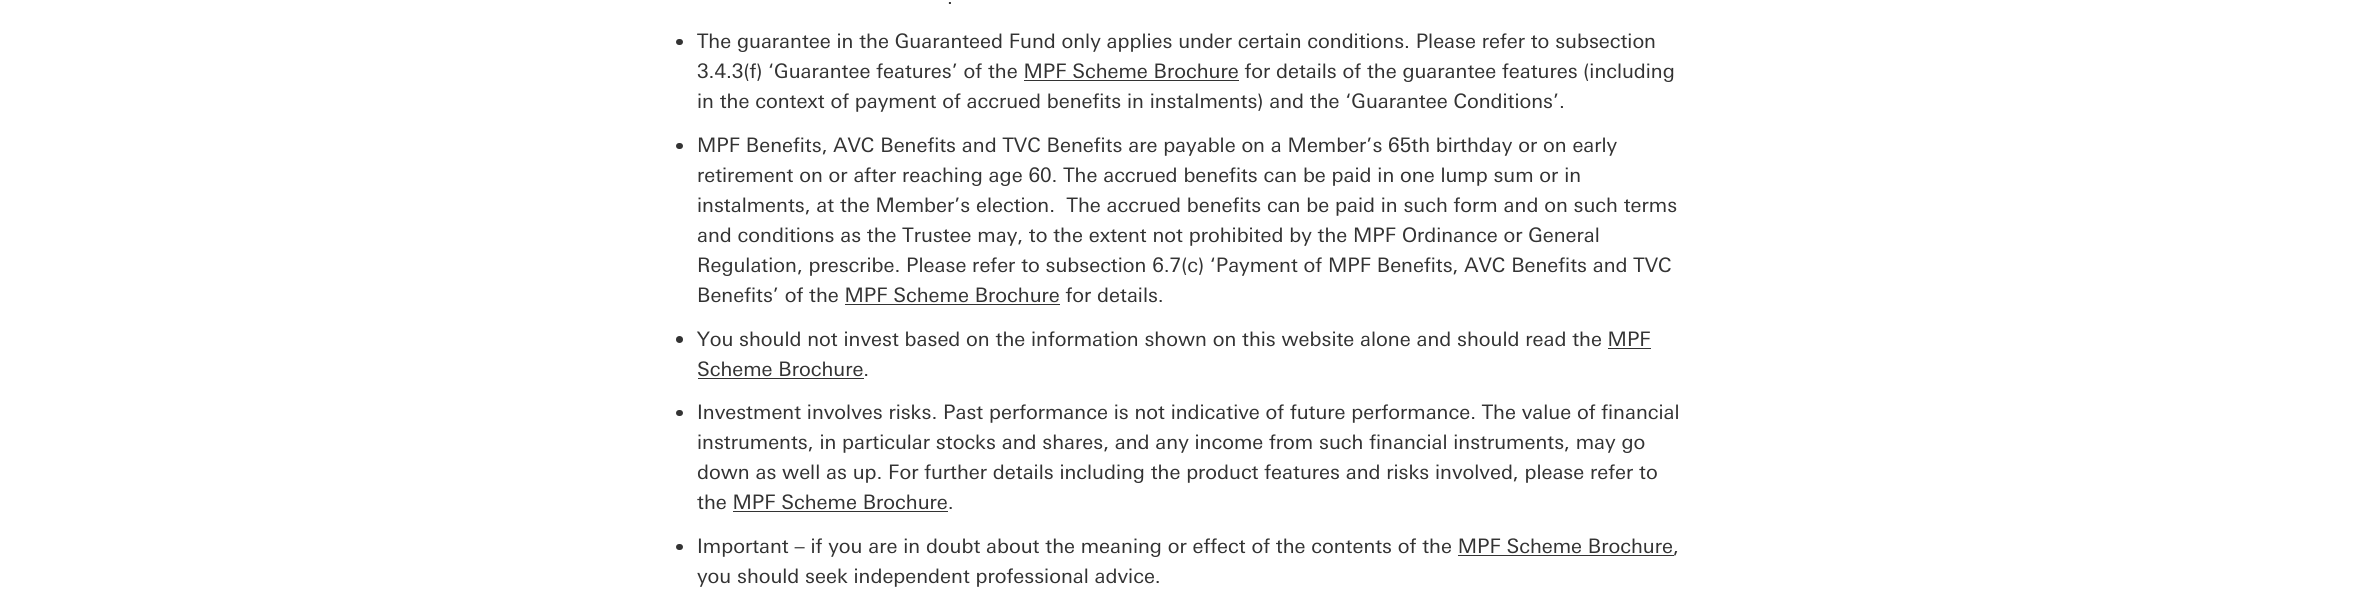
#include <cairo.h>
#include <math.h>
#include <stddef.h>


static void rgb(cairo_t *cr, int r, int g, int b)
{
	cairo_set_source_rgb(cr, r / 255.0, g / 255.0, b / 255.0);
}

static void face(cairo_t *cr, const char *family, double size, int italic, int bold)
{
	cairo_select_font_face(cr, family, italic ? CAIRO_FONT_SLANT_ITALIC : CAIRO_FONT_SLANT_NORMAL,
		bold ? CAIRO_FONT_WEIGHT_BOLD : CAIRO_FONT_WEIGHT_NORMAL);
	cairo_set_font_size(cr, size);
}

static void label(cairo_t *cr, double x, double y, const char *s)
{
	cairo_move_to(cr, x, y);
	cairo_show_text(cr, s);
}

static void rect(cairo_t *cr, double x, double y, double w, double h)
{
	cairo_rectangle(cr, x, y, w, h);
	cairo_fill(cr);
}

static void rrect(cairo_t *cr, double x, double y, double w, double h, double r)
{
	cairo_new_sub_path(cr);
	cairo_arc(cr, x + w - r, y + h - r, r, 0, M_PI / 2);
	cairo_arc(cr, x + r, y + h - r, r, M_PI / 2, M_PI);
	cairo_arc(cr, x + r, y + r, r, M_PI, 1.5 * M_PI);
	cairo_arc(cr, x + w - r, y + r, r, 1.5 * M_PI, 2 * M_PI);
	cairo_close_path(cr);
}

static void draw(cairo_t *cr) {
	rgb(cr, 255, 255, 255);
	cairo_paint(cr);
	face(cr, "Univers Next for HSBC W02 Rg", 20, 0, 0);
	rgb(cr, 51, 51, 51);
	label(cr, 947, 4, ".");
	rrect(cr, 676, 39, 7, 6, 3);
	cairo_fill(cr);
	label(cr, 697, 48, "The guarantee in the Guaranteed Fund only applies under certain conditions. Please refer to subsection");
	label(cr, 697, 78, "3.4.3(f) ‘Guarantee features’ of the MPF Scheme Brochure for details of the guarantee features (including");
	rect(cr, 1024, 80, 215, 1);
	label(cr, 697, 108, "in the context of payment of accrued benefits in instalments) and the ‘Guarantee Conditions’.");
	rrect(cr, 676, 143, 7, 6, 3);
	cairo_fill(cr);
	label(cr, 697, 152, "MPF Benefits, AVC Benefits and TVC Benefits are payable on a Member’s 65th birthday or on early");
	label(cr, 697, 182, "retirement on or after reaching age 60. The accrued benefits can be paid in one lump sum or in");
	label(cr, 697, 212, "instalments, at the Member’s election.  The accrued benefits can be paid in such form and on such terms");
	label(cr, 697, 242, "and conditions as the Trustee may, to the extent not prohibited by the MPF Ordinance or General");
	label(cr, 697, 272, "Regulation, prescribe. Please refer to subsection 6.7(c) ‘Payment of MPF Benefits, AVC Benefits and TVC");
	label(cr, 697, 302, "Benefits’ of the MPF Scheme Brochure for details.");
	rect(cr, 845, 304, 215, 1);
	cairo_new_path(cr);
	cairo_arc(cr, 679.5, 339.5, 3.5, 0, 2 * M_PI);
	cairo_fill(cr);
	label(cr, 697, 346, "You should not invest based on the information shown on this website alone and should read the MPF");
	label(cr, 697, 376, "Scheme Brochure.");
	rect(cr, 1608, 348, 43, 1);
	rect(cr, 698, 378, 166, 1);
	rrect(cr, 676, 410, 7, 6, 3);
	cairo_fill(cr);
	label(cr, 697, 419, "Investment involves risks. Past performance is not indicative of future performance. The value of financial");
	label(cr, 697, 449, "instruments, in particular stocks and shares, and any income from such financial instruments, may go");
	label(cr, 697, 479, "down as well as up. For further details including the product features and risks involved, please refer to");
	label(cr, 697, 509, "the MPF Scheme Brochure.");
	rect(cr, 733, 511, 215, 1);
	rrect(cr, 676, 544, 7, 6, 3);
	cairo_fill(cr);
	label(cr, 697, 553, "Important – if you are in doubt about the meaning or effect of the contents of the MPF Scheme Brochure,");
	rect(cr, 1458, 555, 216, 1);
	label(cr, 697, 583, "you should seek independent professional advice.");
}

int main(void) {
	cairo_surface_t *surface = cairo_image_surface_create(CAIRO_FORMAT_RGB24, 2363, 604);
	cairo_t *cr = cairo_create(surface);
	cairo_font_options_t *options = cairo_font_options_create();
	cairo_font_options_set_hint_metrics(options, CAIRO_HINT_METRICS_OFF);
	cairo_font_options_set_hint_style(options, CAIRO_HINT_STYLE_NONE);
	cairo_set_font_options(cr, options);
	cairo_set_miter_limit(cr, 4);
	draw(cr);
	cairo_surface_write_to_png(surface, "render.png");
	cairo_font_options_destroy(options);
	cairo_destroy(cr);
	cairo_surface_destroy(surface);
	return 0;
}
